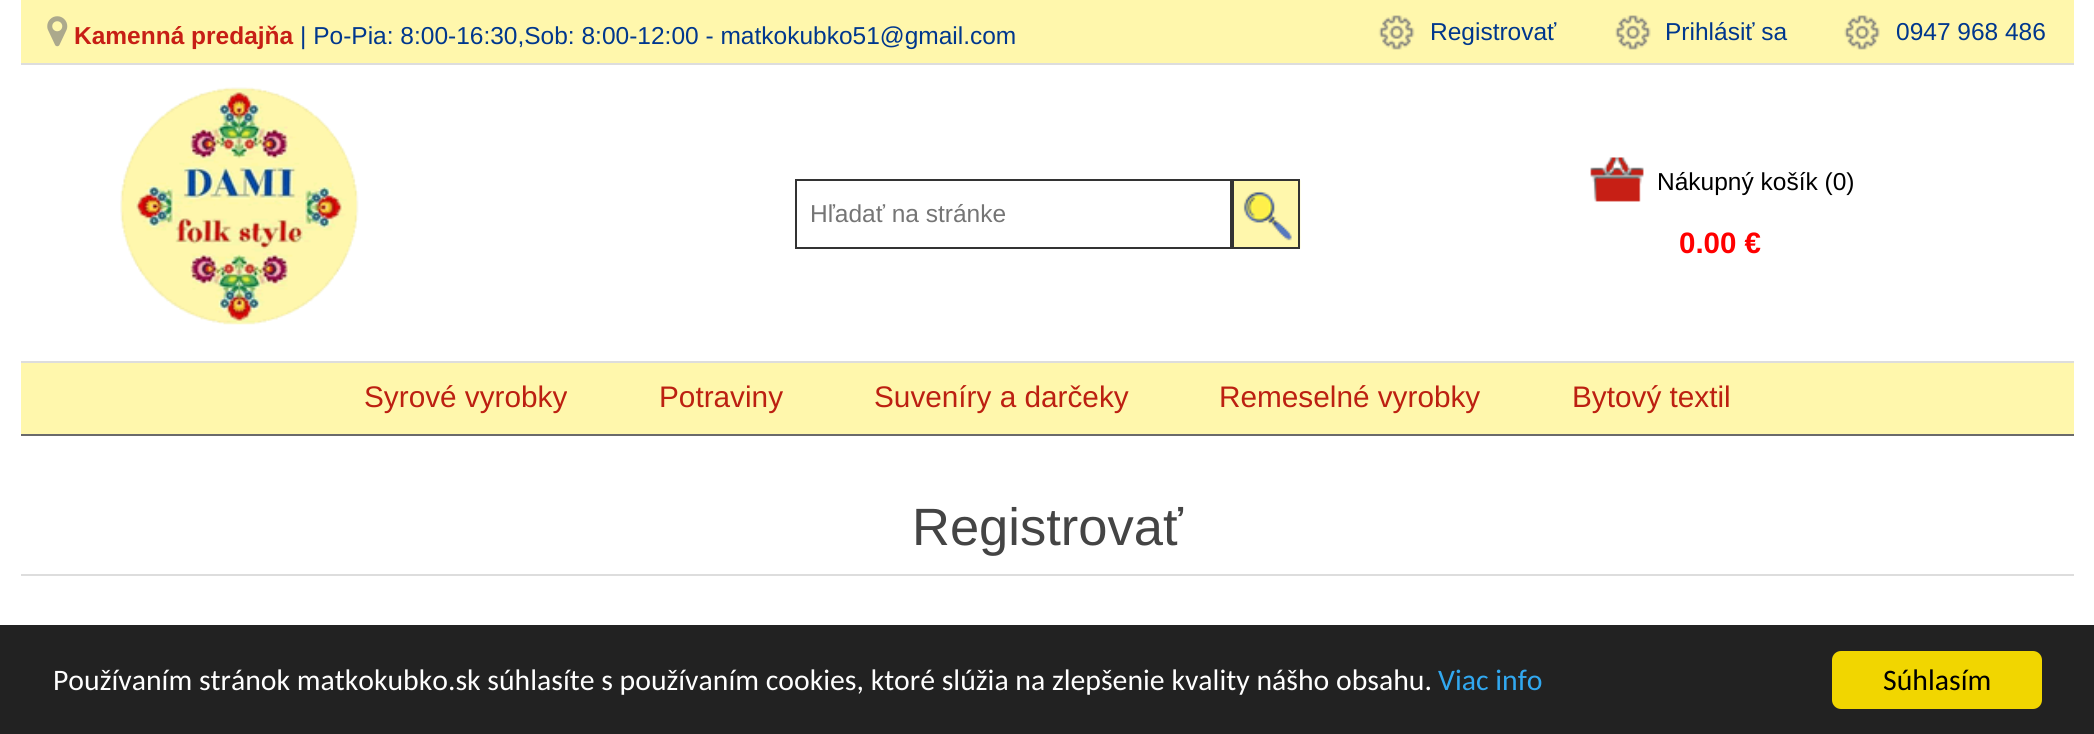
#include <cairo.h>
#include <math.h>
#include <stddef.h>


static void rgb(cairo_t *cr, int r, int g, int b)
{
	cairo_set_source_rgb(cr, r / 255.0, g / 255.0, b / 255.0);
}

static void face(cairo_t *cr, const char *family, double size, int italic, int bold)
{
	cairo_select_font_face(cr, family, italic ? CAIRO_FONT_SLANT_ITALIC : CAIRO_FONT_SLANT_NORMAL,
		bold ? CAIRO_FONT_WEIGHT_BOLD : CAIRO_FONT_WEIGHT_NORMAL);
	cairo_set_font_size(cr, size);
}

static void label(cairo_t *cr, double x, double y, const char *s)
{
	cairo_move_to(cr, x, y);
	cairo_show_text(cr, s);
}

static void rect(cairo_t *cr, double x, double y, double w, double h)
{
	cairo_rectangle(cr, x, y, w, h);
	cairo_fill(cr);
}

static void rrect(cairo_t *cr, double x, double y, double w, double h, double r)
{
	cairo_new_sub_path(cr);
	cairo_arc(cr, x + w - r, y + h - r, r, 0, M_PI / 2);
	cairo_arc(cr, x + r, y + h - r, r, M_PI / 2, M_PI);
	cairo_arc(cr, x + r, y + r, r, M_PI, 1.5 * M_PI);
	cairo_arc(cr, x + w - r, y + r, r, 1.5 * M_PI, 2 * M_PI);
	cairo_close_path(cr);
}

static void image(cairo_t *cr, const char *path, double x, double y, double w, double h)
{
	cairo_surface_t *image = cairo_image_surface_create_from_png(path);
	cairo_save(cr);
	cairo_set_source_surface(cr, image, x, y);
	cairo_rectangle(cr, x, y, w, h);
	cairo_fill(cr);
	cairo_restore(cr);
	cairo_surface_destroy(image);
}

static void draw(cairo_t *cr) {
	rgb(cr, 255, 255, 255);
	cairo_paint(cr);
	rgb(cr, 255, 247, 172);
	rect(cr, 21, 0, 2053, 63);
	rgb(cr, 221, 221, 221);
	rect(cr, 21, 63, 2053, 2);
	image(cr, "image0.png", 47, 16, 21, 31);
	face(cr, "Liberation Sans", 24.5, 0, 1);
	rgb(cr, 199, 31, 21);
	label(cr, 74, 44, "Kamenná predajňa");
	face(cr, "Liberation Sans", 24.5, 0, 0);
	rgb(cr, 0, 55, 141);
	label(cr, 300, 44, "| Po-Pia: 8:00-16:30,Sob: 8:00-12:00 - matkokubko51@gmail.com");
	image(cr, "image1.png", 1378, 15, 37, 35);
	label(cr, 1430, 40, "Registrovať");
	image(cr, "image2.png", 1615, 15, 36, 35);
	label(cr, 1665, 40, "Prihlásiť sa");
	image(cr, "image3.png", 1844, 15, 36, 35);
	label(cr, 1896, 40, "0947 968 486");
	image(cr, "image4.png", 120, 87, 239, 238);
	cairo_rectangle(cr, 796, 180, 435, 68);
	rgb(cr, 51, 51, 51);
	cairo_stroke(cr);
	rgb(cr, 117, 117, 117);
	label(cr, 810, 222, "Hľadať na stránke");
	image(cr, "image5.png", 1234, 180, 67, 69);
	cairo_rectangle(cr, 1233, 180, 66, 68);
	rgb(cr, 51, 51, 51);
	cairo_stroke(cr);
	image(cr, "image6.png", 1590, 157, 54, 45);
	rgb(cr, 0, 0, 0);
	label(cr, 1657, 190, "Nákupný košík (0)");
	face(cr, "Liberation Sans", 29.5, 0, 1);
	rgb(cr, 255, 0, 0);
	label(cr, 1679, 253, "0.00 €");
	rgb(cr, 255, 247, 172);
	rect(cr, 21, 363, 2053, 71);
	rgb(cr, 221, 221, 221);
	rect(cr, 21, 361, 2053, 2);
	rgb(cr, 106, 106, 106);
	rect(cr, 21, 434, 2053, 2);
	face(cr, "Liberation Sans", 29.75, 0, 0);
	rgb(cr, 188, 32, 17);
	label(cr, 364, 407, "Syrové vyrobky");
	label(cr, 659, 407, "Potraviny");
	label(cr, 874, 407, "Suveníry a darčeky");
	label(cr, 1219, 407, "Remeselné vyrobky");
	label(cr, 1572, 407, "Bytový textil");
	rgb(cr, 221, 221, 221);
	rect(cr, 21, 574, 2053, 2);
	face(cr, "Liberation Sans", 52.5, 0, 0);
	rgb(cr, 68, 68, 68);
	label(cr, 912, 545, "Registrovať");
	rgb(cr, 34, 34, 34);
	rect(cr, 0, 625, 2094, 109);
	face(cr, "Carlito", 29.75, 0, 0);
	rgb(cr, 255, 255, 255);
	label(cr, 53, 690, "Používaním stránok matkokubko.sk súhlasíte s používaním cookies, ktoré slúžia na zlepšenie kvality nášho obsahu.");
	rgb(cr, 49, 168, 240);
	label(cr, 1438, 690, "Viac info");
	rgb(cr, 241, 214, 0);
	rrect(cr, 1832, 651, 210, 58, 9);
	cairo_fill(cr);
	rgb(cr, 0, 0, 0);
	label(cr, 1883, 690, "Súhlasím");
}

int main(void) {
	cairo_surface_t *surface = cairo_image_surface_create(CAIRO_FORMAT_RGB24, 2094, 734);
	cairo_t *cr = cairo_create(surface);
	cairo_font_options_t *options = cairo_font_options_create();
	cairo_font_options_set_hint_metrics(options, CAIRO_HINT_METRICS_OFF);
	cairo_font_options_set_hint_style(options, CAIRO_HINT_STYLE_NONE);
	cairo_set_font_options(cr, options);
	cairo_set_miter_limit(cr, 4);
	draw(cr);
	cairo_surface_write_to_png(surface, "render.png");
	cairo_font_options_destroy(options);
	cairo_destroy(cr);
	cairo_surface_destroy(surface);
	return 0;
}
